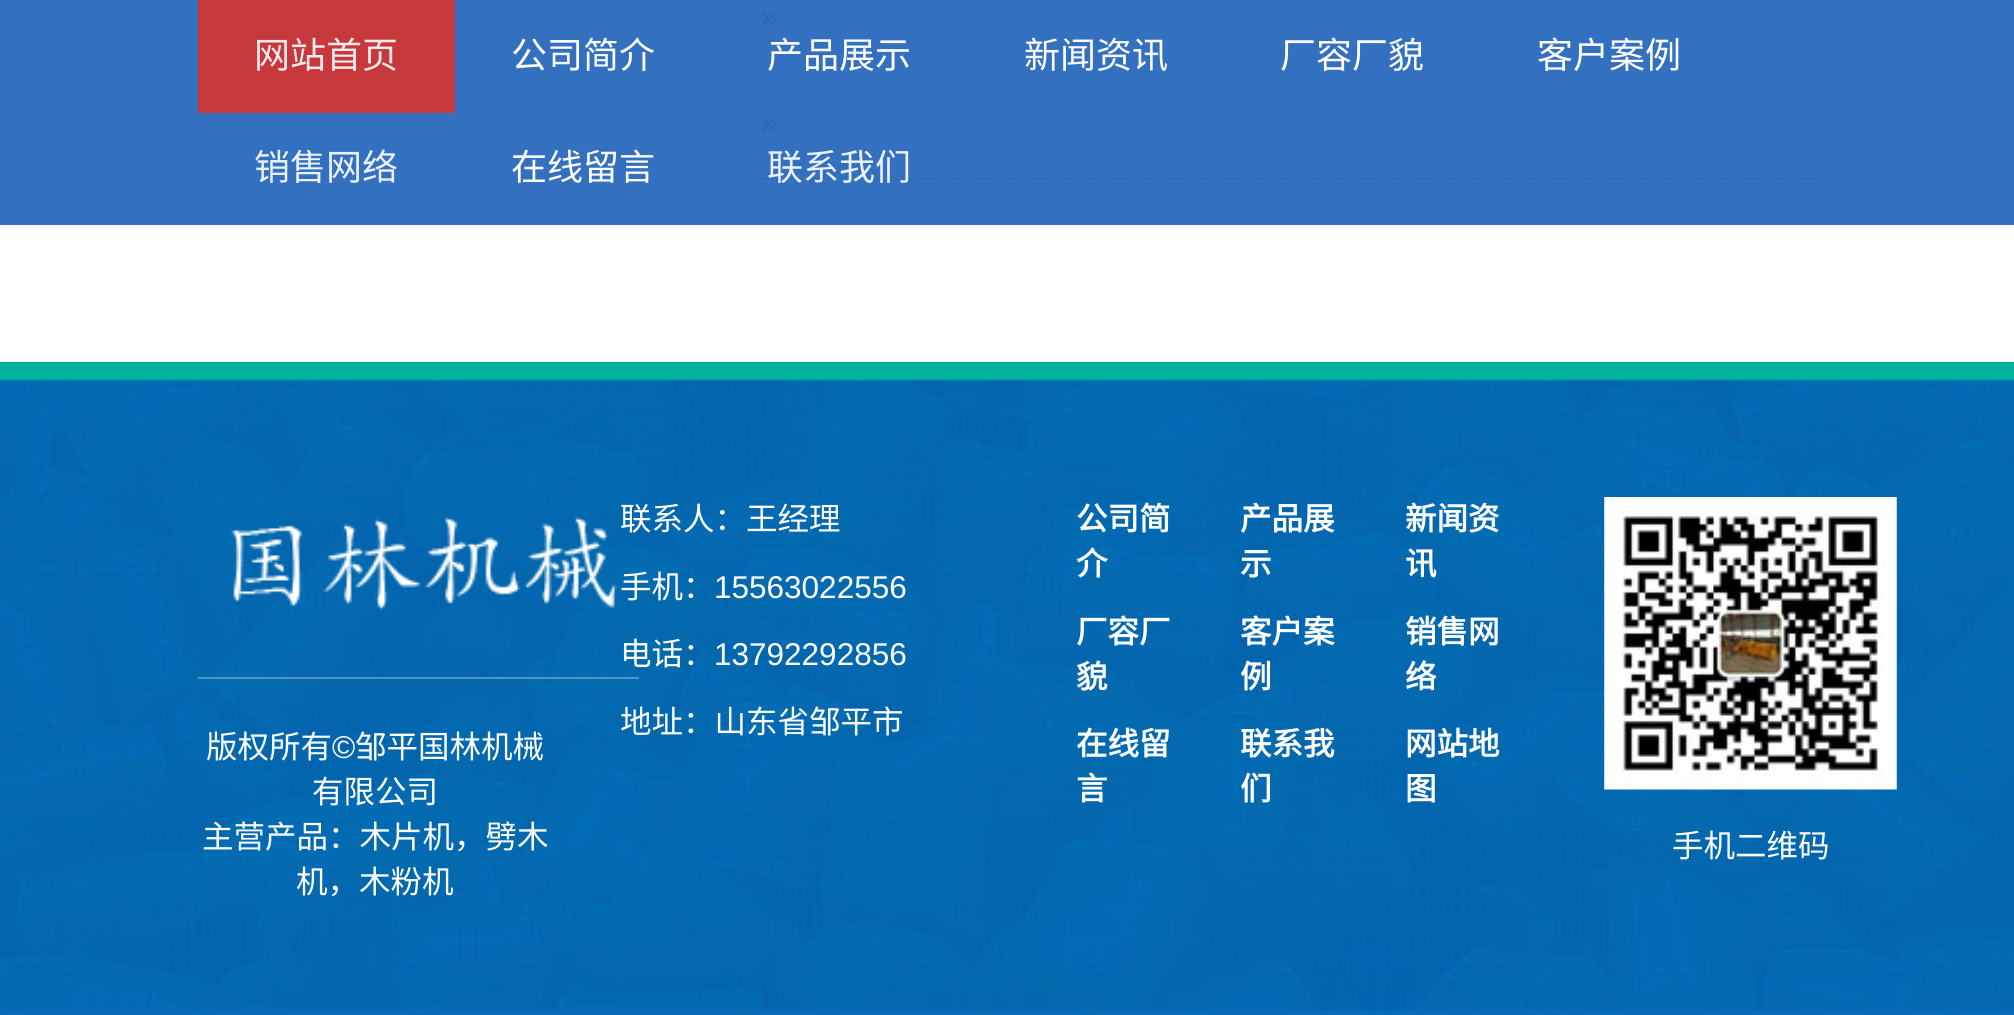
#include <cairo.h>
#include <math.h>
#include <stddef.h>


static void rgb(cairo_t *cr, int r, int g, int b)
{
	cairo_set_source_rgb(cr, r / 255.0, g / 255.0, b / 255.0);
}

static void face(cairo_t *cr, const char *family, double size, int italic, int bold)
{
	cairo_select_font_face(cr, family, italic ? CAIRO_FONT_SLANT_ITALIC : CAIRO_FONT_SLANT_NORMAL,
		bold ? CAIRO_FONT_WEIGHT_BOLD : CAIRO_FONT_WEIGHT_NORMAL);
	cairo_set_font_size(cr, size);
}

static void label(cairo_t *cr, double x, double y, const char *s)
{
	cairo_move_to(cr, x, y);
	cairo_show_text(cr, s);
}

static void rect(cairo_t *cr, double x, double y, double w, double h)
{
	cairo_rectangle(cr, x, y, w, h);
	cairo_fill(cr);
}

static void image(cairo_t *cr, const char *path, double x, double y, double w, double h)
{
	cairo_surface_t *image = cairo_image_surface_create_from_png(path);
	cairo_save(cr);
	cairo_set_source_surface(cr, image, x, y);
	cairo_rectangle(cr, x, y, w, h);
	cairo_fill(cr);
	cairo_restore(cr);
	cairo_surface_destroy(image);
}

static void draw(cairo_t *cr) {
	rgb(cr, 255, 255, 255);
	cairo_paint(cr);
	image(cr, "image0.png", 762, 12, 15, 14);
	cairo_new_path(cr);
	cairo_move_to(cr, 760.5, 73);
	cairo_line_to(cr, 1818, 73);
	rgb(cr, 227, 226, 226);
	cairo_set_line_width(cr, 2.2);
	cairo_set_dash(cr, (double[]){6.75, 4.54}, 2, 0);
	cairo_stroke(cr);
	image(cr, "image1.png", 762, 118, 15, 13);
	cairo_new_path(cr);
	cairo_move_to(cr, 760.5, 179);
	cairo_line_to(cr, 1818, 179);
	cairo_stroke(cr);
	cairo_set_source_rgba(cr, 0.118, 0.38, 0.729, 0.9);
	rect(cr, 0, 0, 2014, 225);
	cairo_set_source_rgba(cr, 0.843, 0.196, 0.18, 0.9);
	rect(cr, 198, 0, 257, 113);
	face(cr, "Noto Sans CJK SC", 36, 0, 0);
	rgb(cr, 249, 235, 236);
	label(cr, 254, 68, "网站首页");
	rgb(cr, 255, 255, 255);
	label(cr, 511, 68, "公司简介");
	label(cr, 767, 68, "产品展示");
	label(cr, 1024, 68, "新闻资讯");
	label(cr, 1280, 68, "厂容厂貌");
	label(cr, 1537, 68, "客户案例");
	rgb(cr, 235, 241, 249);
	label(cr, 254, 180, "销售网络");
	rgb(cr, 255, 255, 255);
	label(cr, 511, 180, "在线留言");
	rgb(cr, 235, 241, 249);
	label(cr, 767, 180, "联系我们");
	rgb(cr, 7, 107, 181);
	rect(cr, 0, 1010, 2014, 5);
	image(cr, "image2.png", 0, 362, 2014, 648);
	image(cr, "image3.png", 231, 516, 386, 94);
	rgb(cr, 78, 151, 197);
	rect(cr, 198, 677, 441, 2);
	face(cr, "Noto Sans CJK SC", 31.5, 0, 0);
	rgb(cr, 255, 255, 255);
	label(cr, 206, 758, "版权所有");
	face(cr, "Liberation Sans", 31.5, 0, 0);
	label(cr, 332, 758, "©");
	face(cr, "Noto Sans CJK SC", 31.5, 0, 0);
	label(cr, 355, 758, "邹平国林机械");
	label(cr, 312, 803, "有限公司");
	label(cr, 202, 848, "主营产品：木片机，劈木");
	label(cr, 296, 893, "机，木粉机");
	label(cr, 620, 530, "联系人：王经理");
	label(cr, 620, 598, "手机：");
	face(cr, "Liberation Sans", 31.5, 0, 0);
	label(cr, 714, 598, "15563022556");
	face(cr, "Noto Sans CJK SC", 31.5, 0, 0);
	label(cr, 620, 665, "电话：");
	face(cr, "Liberation Sans", 31.5, 0, 0);
	label(cr, 714, 665, "13792292856");
	face(cr, "Noto Sans CJK SC", 31.5, 0, 0);
	label(cr, 620, 733, "地址：山东省邹平市");
	face(cr, "Noto Sans CJK SC", 31.5, 0, 1);
	label(cr, 1076, 530, "公司简");
	label(cr, 1076, 575, "介");
	label(cr, 1240, 530, "产品展");
	label(cr, 1240, 575, "示");
	label(cr, 1405, 530, "新闻资");
	label(cr, 1405, 575, "讯");
	label(cr, 1076, 643, "厂容厂");
	label(cr, 1076, 688, "貌");
	label(cr, 1240, 643, "客户案");
	label(cr, 1240, 688, "例");
	label(cr, 1405, 643, "销售网");
	label(cr, 1405, 688, "络");
	label(cr, 1076, 755, "在线留");
	label(cr, 1076, 800, "言");
	label(cr, 1240, 755, "联系我");
	label(cr, 1240, 800, "们");
	label(cr, 1405, 755, "网站地");
	label(cr, 1405, 800, "图");
	image(cr, "image4.png", 1604, 497, 293, 293);
	face(cr, "Noto Sans CJK SC", 31.5, 0, 0);
	label(cr, 1672, 857, "手机二维码");
}

int main(void) {
	cairo_surface_t *surface = cairo_image_surface_create(CAIRO_FORMAT_RGB24, 2014, 1015);
	cairo_t *cr = cairo_create(surface);
	cairo_font_options_t *options = cairo_font_options_create();
	cairo_font_options_set_hint_metrics(options, CAIRO_HINT_METRICS_OFF);
	cairo_font_options_set_hint_style(options, CAIRO_HINT_STYLE_NONE);
	cairo_set_font_options(cr, options);
	cairo_set_miter_limit(cr, 4);
	draw(cr);
	cairo_surface_write_to_png(surface, "render.png");
	cairo_font_options_destroy(options);
	cairo_destroy(cr);
	cairo_surface_destroy(surface);
	return 0;
}
